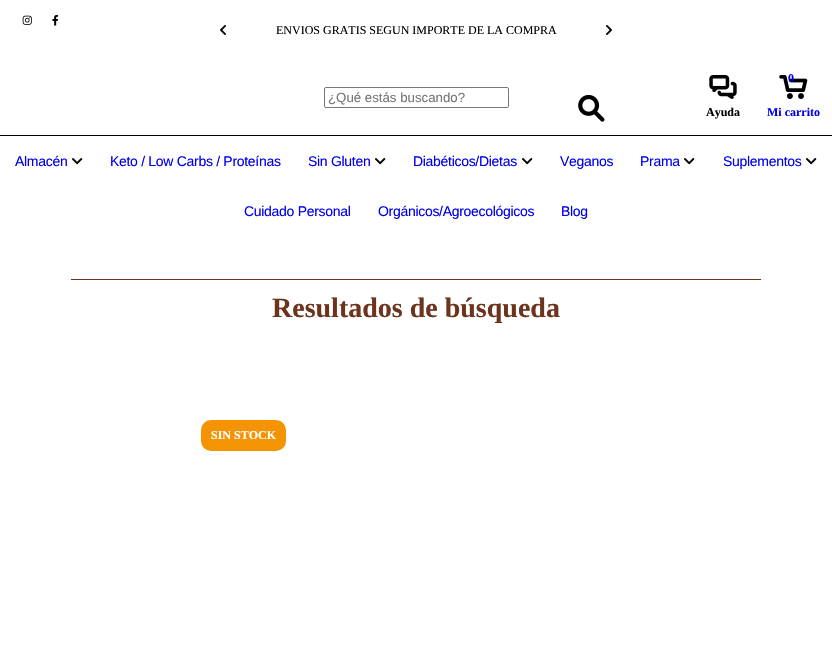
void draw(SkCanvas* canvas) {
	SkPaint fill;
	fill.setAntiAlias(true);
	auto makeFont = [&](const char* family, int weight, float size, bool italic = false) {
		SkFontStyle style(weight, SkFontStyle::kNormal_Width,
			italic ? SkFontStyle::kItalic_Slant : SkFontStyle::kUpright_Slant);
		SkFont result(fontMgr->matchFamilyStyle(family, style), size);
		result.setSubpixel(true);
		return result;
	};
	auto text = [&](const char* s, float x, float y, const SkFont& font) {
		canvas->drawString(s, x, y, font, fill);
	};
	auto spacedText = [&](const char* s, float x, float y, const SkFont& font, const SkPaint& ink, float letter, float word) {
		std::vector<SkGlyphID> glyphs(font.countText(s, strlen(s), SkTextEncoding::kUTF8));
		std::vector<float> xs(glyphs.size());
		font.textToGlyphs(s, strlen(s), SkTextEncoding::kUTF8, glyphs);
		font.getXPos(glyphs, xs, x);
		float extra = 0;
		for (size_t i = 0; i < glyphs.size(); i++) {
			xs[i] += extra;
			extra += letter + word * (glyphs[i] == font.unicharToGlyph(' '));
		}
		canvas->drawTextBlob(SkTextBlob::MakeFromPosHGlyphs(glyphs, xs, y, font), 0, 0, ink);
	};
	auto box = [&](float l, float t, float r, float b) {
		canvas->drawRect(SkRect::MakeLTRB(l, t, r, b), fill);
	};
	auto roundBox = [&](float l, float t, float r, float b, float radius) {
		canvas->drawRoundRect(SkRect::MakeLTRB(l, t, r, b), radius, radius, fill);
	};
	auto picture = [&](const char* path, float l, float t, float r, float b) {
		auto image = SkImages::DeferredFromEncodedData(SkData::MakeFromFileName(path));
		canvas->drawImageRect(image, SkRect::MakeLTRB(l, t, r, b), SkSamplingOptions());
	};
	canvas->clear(0xFFFFFFFF);
	picture("image0.png", 22, 15, 32, 25);
	picture("image1.png", 52, 15, 59, 26);
	picture("image2.png", 220, 25, 226, 35);
	picture("image3.png", 606, 25, 612, 35);
	fill.setStyle(SkPaint::kStroke_Style);
	fill.setStrokeWidth(1);
	fill.setColor(0xFF767676);
	canvas->drawRoundRect(SkRect::MakeLTRB(324.5f, 87.5f, 508.5f, 107.5f), 1.5f, 1.5f, fill);
	picture("image4.png", 578, 95, 605, 122);
	picture("image5.png", 709, 75, 737, 99);
	picture("image6.png", 779, 75, 808, 99);
	fill.setStyle(SkPaint::kFill_Style);
	fill.setColor(0xFF000000);
	box(0, 135, 832, 136);
	picture("image7.png", 72, 158, 83, 165);
	picture("image7.png", 375, 158, 386, 165);
	picture("image7.png", 522, 158, 533, 165);
	picture("image7.png", 684, 158, 695, 165);
	picture("image7.png", 806, 158, 817, 165);
	fill.setColor(0xFF6C341C);
	box(71, 279, 761, 280);
	fill.setColor(0xFFF49403);
	roundBox(201, 420, 286, 451, 10);
	auto font1 = makeFont("Liberation Serif", 400, 12);
	fill.setColor(0xFF000000);
	text("ENVIOS GRATIS SEGUN IMPORTE DE LA COMPRA", 276, 34, font1);
	auto font2 = makeFont("Liberation Sans", 400, 13.25f);
	fill.setColor(0xFF757575);
	text("¿Qué estás buscando?", 328, 102, font2);
	auto font3 = makeFont("Liberation Serif", 700, 12);
	fill.setColor(0xFF000000);
	text("Ayuda", 706, 116, font3);
	fill.setColor(0xFF0000EE);
	text("0", 788, 82, font3);
	text("Mi carrito", 767, 116, font3);
	auto font4 = makeFont("Liberation Sans", 400, 14);
	spacedText("Almacén", 15, 166, font4, fill, -0.3f, 0);
	spacedText("Keto / Low Carbs / Proteínas", 110, 166, font4, fill, -0.3f, 0);
	spacedText("Sin Gluten", 308, 166, font4, fill, -0.3f, 0);
	spacedText("Diabéticos/Dietas", 413, 166, font4, fill, -0.3f, 0);
	spacedText("Veganos", 560, 166, font4, fill, -0.3f, 0);
	spacedText("Prama", 640, 166, font4, fill, -0.3f, 0);
	spacedText("Suplementos", 723, 166, font4, fill, -0.3f, 0);
	spacedText("Cuidado Personal", 244, 216, font4, fill, -0.3f, 0);
	spacedText("Orgánicos/Agroecológicos", 378, 216, font4, fill, -0.3f, 0);
	spacedText("Blog", 561, 216, font4, fill, -0.3f, 0);
	auto font5 = makeFont("Liberation Serif", 700, 28);
	fill.setColor(0xFF6C341C);
	text("Resultados de búsqueda", 272, 317, font5);
	fill.setColor(0xFFFFFFFF);
	text("SIN STOCK", 211, 439, font3);
}
